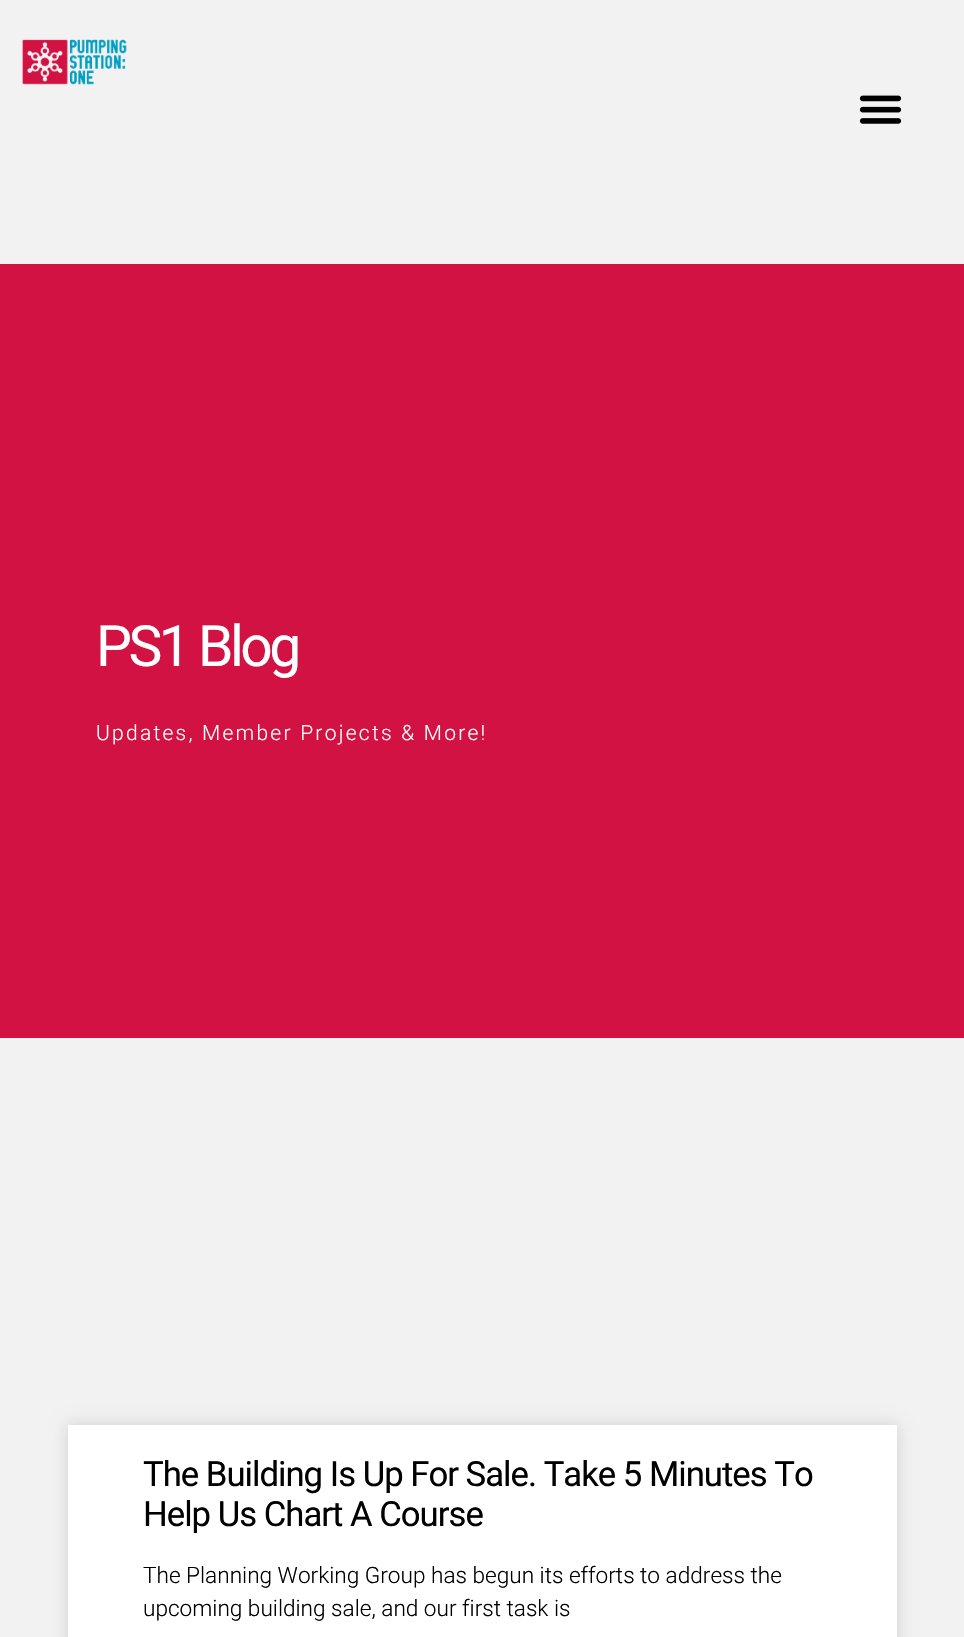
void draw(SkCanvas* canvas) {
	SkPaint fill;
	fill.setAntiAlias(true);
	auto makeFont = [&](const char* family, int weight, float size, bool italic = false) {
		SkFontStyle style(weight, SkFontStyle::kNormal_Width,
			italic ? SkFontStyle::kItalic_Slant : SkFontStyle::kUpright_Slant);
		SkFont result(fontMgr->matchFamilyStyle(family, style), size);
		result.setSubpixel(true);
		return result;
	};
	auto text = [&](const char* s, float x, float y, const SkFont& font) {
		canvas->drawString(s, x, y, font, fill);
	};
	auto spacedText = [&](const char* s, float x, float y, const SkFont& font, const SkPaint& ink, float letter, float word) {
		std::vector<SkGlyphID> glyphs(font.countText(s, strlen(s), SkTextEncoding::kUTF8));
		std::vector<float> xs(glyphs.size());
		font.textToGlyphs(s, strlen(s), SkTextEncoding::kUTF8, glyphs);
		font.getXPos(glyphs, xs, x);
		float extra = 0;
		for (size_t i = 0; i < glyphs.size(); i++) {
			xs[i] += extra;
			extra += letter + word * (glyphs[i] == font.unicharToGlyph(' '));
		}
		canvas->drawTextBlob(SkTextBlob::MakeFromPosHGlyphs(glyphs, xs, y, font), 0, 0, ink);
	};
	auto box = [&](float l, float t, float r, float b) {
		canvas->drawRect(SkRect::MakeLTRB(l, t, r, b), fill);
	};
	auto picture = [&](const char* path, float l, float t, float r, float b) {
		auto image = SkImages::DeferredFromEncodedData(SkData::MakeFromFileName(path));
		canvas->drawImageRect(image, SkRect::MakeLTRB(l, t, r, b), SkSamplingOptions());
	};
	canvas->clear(0xFFF2F2F2);
	picture("image0.png", 22, 39, 127, 85);
	picture("image1.png", 859, 95, 902, 124);
	fill.setColor(0xFFD11242);
	box(0, 264, 964, 1038);
	fill.setColor(0x26000000);
	fill.setMaskFilter(SkMaskFilter::MakeBlur(kNormal_SkBlurStyle, 7.5f));
	canvas->drawRect(SkRect::MakeLTRB(68, 1425, 897, 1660), fill);
	fill.setMaskFilter(nullptr);
	fill.setColor(0xFFFFFFFF);
	box(68, 1425, 897, 1637);
	auto font1 = makeFont("Roboto", 400, 57);
	spacedText("PS1 Blog", 96, 666, font1, fill, -3.5f, 0);
	auto font2 = makeFont("Roboto", 300, 21);
	spacedText("Updates, Member Projects & More!", 96, 740, font2, fill, 2.25f, 0);
	auto font3 = makeFont("Roboto", 400, 34.7f);
	fill.setColor(0xFF000000);
	spacedText("The Building Is Up For Sale. Take 5 Minutes To", 143, 1486, font3, fill, -1, 0);
	spacedText("Help Us Chart A Course", 143, 1526, font3, fill, -1, 0);
	auto font4 = makeFont("Roboto", 300, 22.6f);
	text("The Planning Working Group has begun its efforts to address the", 143, 1583, font4);
	text("upcoming building sale, and our first task is", 143, 1616, font4);
}
